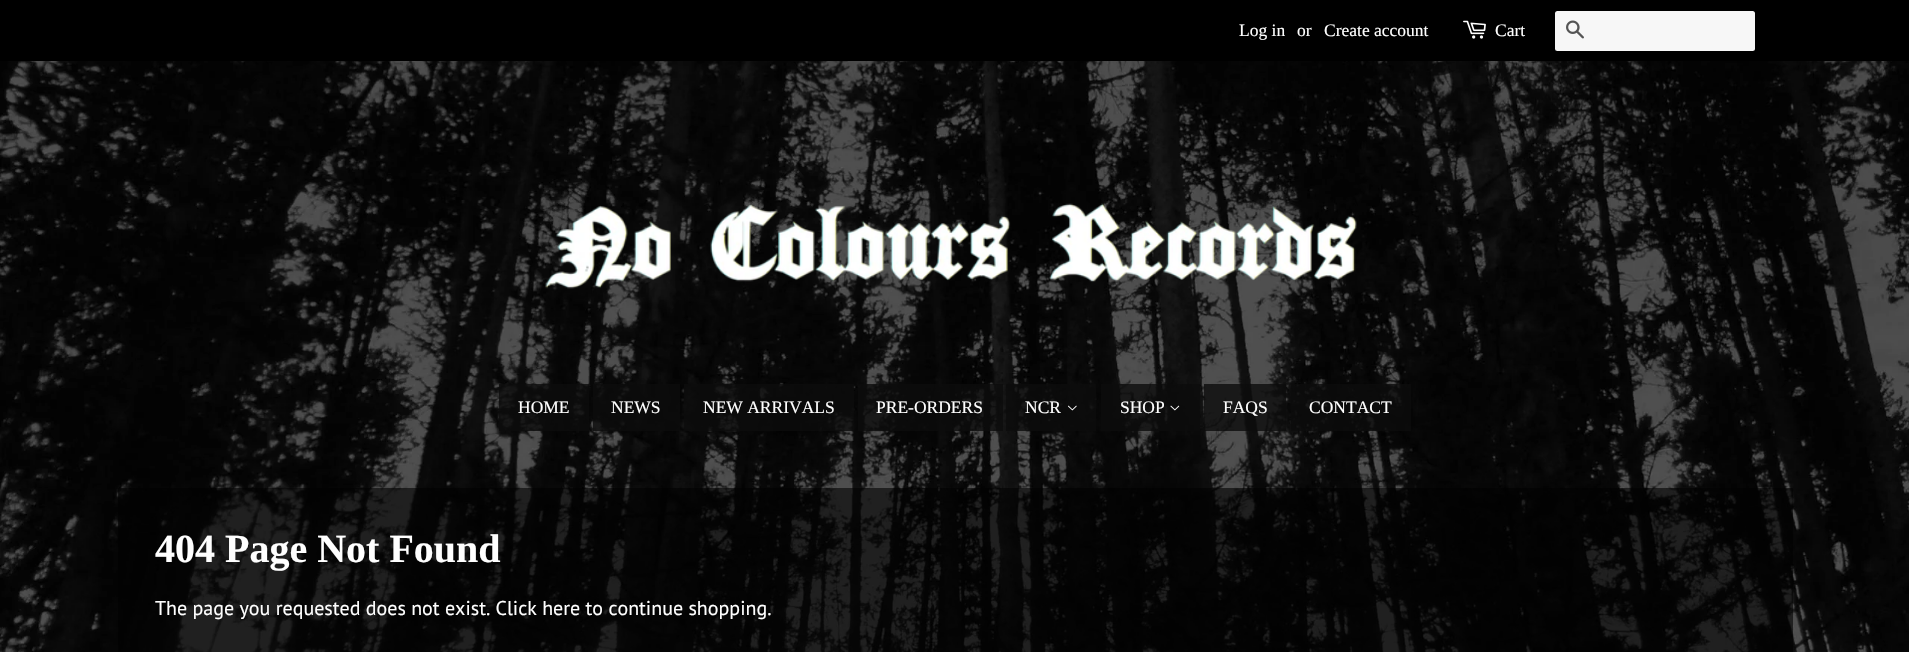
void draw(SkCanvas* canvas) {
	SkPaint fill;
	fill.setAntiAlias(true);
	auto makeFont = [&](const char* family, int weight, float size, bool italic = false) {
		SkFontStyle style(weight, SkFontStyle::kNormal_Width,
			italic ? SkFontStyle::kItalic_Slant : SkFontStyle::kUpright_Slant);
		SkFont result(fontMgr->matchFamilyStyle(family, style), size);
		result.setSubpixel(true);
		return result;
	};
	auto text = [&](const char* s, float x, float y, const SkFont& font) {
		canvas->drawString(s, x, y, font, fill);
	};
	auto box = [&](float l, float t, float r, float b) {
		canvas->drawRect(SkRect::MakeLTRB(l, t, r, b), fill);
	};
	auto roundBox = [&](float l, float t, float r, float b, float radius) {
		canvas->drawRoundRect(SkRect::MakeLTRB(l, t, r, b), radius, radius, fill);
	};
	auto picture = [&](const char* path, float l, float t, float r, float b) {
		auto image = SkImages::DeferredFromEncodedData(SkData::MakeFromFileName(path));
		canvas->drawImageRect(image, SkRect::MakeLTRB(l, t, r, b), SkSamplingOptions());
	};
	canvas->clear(0xFFFFFFFF);
	picture("image0.png", 0, 61, 1909, 652);
	fill.setColor(0xFF000000);
	box(0, 0, 1909, 61);
	picture("image1.png", 1463, 20, 1486, 39);
	fill.setColor(0xFFFFFFFF);
	roundBox(1555, 11, 1755, 51, 2.5f);
	fill.setColor(0x08000000);
	box(1555, 11, 1755, 51);
	picture("image2.png", 1566, 20, 1584, 39);
	picture("image3.png", 545, 203, 1357, 289);
	fill.setColor(0xCC0B0B0B);
	box(499, 384, 589, 431);
	box(593, 384, 680, 431);
	box(684, 384, 854, 431);
	box(858, 384, 1003, 431);
	box(1006, 384, 1096, 431);
	picture("image4.png", 1068, 405, 1077, 411);
	box(1101, 384, 1200, 431);
	picture("image5.png", 1170, 405, 1180, 411);
	box(1204, 384, 1286, 431);
	box(1291, 384, 1411, 431);
	fill.setColor(0x99000000);
	box(118, 488, 1793, 652);
	auto font1 = makeFont("Liberation Serif", 400, 17.5f);
	fill.setColor(0xFFFFFFFF);
	text("Log in", 1239, 36, font1);
	text("or", 1297, 36, font1);
	text("Create account", 1324, 36, font1);
	text("Cart", 1495, 36, font1);
	text("HOME", 518, 413, font1);
	text("NEWS", 611, 413, font1);
	text("NEW ARRIVALS", 703, 413, font1);
	text("PRE-ORDERS", 876, 413, font1);
	text("NCR", 1025, 413, font1);
	text("SHOP", 1120, 413, font1);
	text("FAQS", 1223, 413, font1);
	text("CONTACT", 1309, 413, font1);
	auto font2 = makeFont("Liberation Serif", 700, 40);
	text("404 Page Not Found", 155, 562, font2);
	auto font3 = makeFont("PT Sans", 400, 20);
	text("The page you requested does not exist. Click here to continue shopping.", 155, 615, font3);
}
